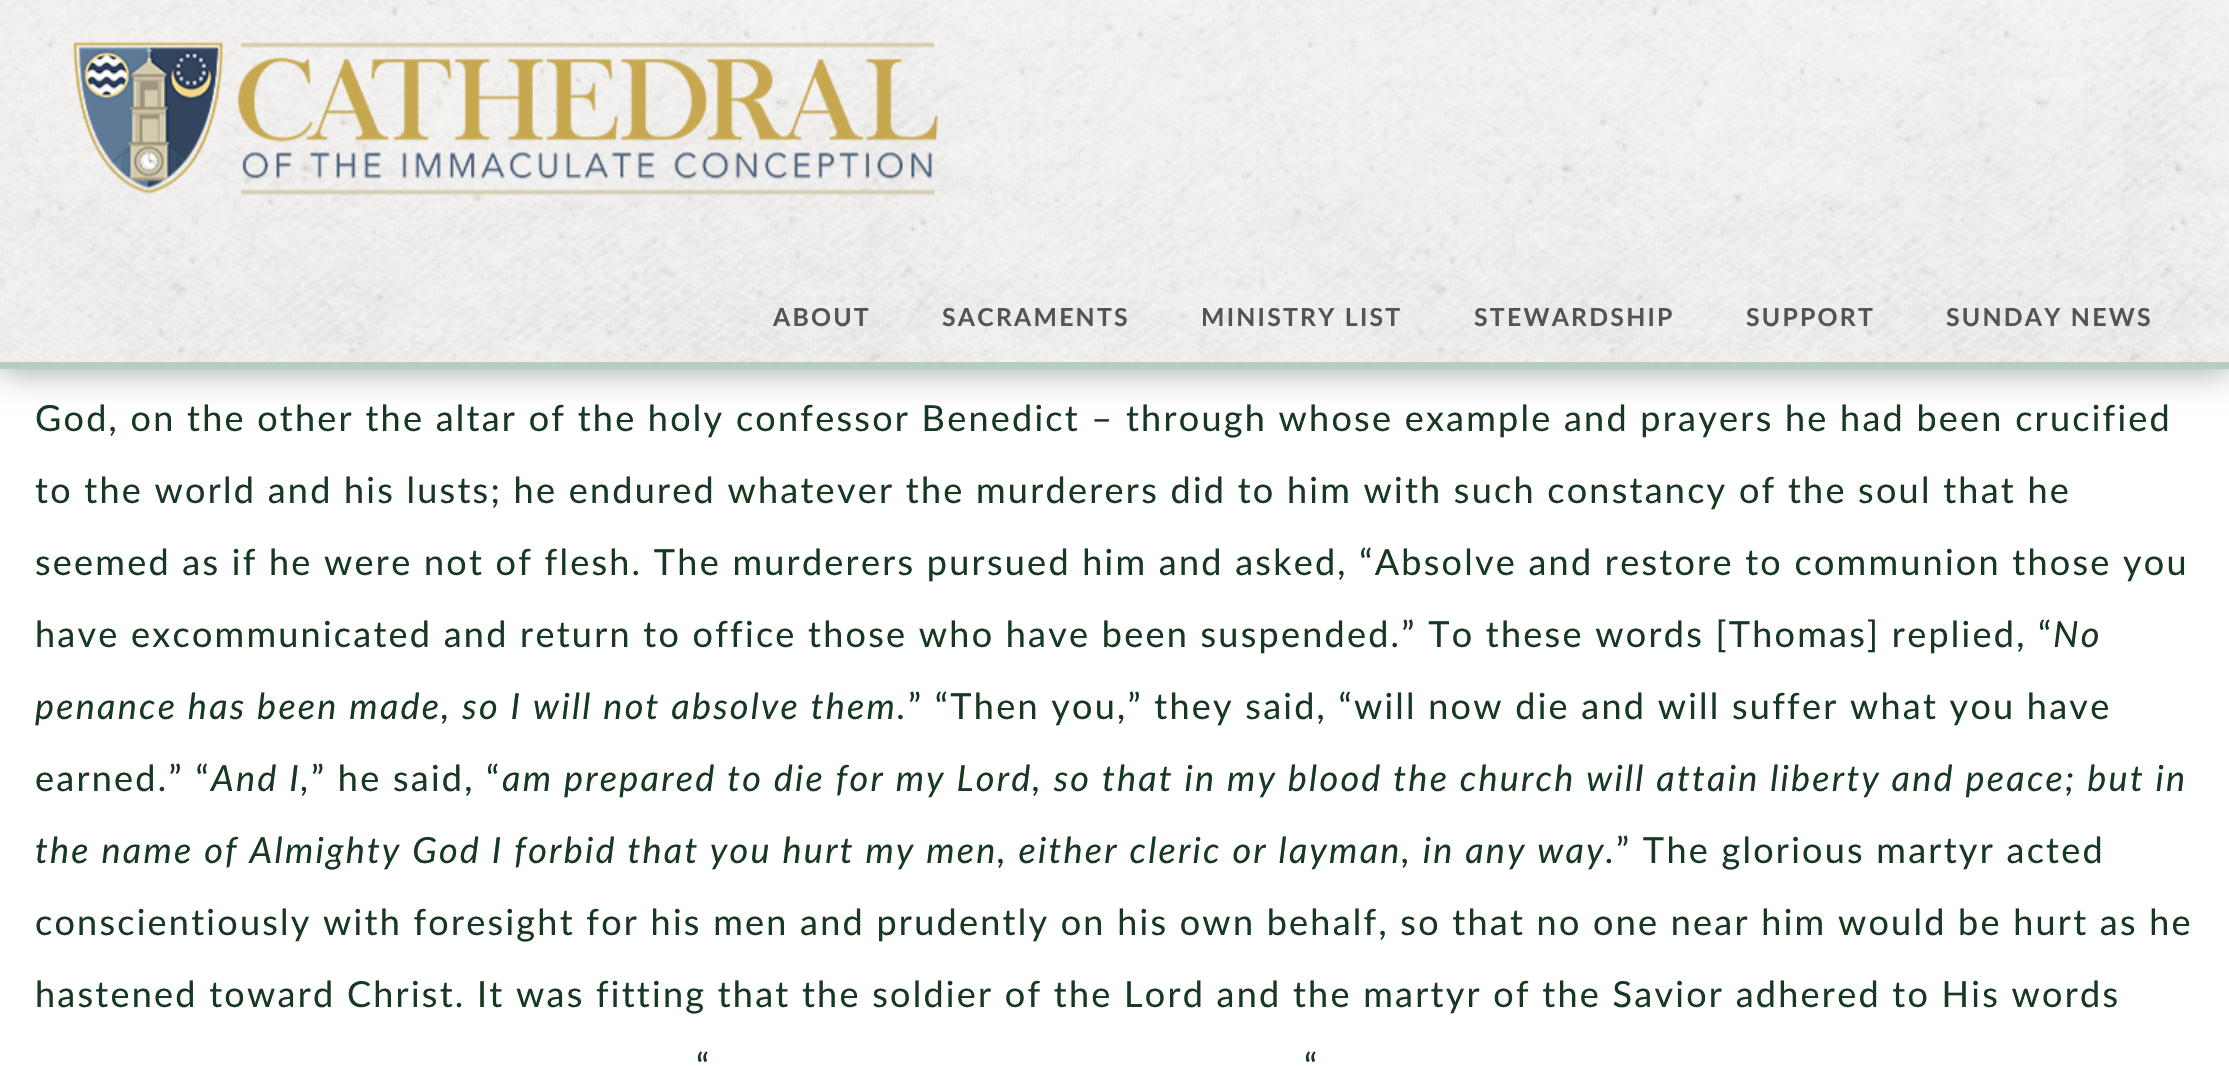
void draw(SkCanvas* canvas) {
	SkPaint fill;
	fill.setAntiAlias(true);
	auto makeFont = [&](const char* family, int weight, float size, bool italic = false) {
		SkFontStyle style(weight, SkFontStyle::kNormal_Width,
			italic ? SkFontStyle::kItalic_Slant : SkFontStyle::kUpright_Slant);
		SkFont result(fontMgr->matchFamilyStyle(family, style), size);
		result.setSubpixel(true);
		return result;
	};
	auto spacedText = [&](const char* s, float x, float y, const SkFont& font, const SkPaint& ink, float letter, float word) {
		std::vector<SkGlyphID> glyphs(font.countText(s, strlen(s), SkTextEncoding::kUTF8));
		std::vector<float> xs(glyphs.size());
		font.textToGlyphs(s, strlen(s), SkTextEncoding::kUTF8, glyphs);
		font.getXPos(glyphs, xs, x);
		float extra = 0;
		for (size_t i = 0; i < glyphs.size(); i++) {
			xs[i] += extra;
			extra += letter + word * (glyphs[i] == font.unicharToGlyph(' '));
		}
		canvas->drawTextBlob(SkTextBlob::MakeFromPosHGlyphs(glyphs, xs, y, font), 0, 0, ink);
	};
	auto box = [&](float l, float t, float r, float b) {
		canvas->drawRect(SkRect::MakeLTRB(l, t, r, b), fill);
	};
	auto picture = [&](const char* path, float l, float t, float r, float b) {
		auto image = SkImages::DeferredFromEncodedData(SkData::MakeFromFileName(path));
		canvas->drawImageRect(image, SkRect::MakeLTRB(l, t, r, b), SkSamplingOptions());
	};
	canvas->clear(0xFFFFFFFF);
	fill.setColor(0xFF999999);
	fill.setMaskFilter(SkMaskFilter::MakeBlur(kNormal_SkBlurStyle, 17));
	canvas->drawRect(SkRect::MakeLTRB(0, 0, 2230, 369), fill);
	fill.setMaskFilter(nullptr);
	picture("image0.png", 0, 0, 2229, 362);
	fill.setColor(0xFFB2CFBF);
	box(0, 362, 2229, 369);
	picture("image1.png", 73, 41, 938, 196);
	auto font1 = makeFont("Lato", 700, 24.75f);
	fill.setColor(0xFF545454);
	spacedText("ABOUT", 773, 326, font1, fill, 2.25f, 0);
	spacedText("SACRAMENTS", 942, 326, font1, fill, 2.25f, 0);
	spacedText("MINISTRY LIST", 1201, 326, font1, fill, 2.25f, 0);
	spacedText("STEWARDSHIP", 1474, 326, font1, fill, 2.25f, 0);
	spacedText("SUPPORT", 1746, 326, font1, fill, 2.25f, 0);
	spacedText("SUNDAY NEWS", 1946, 326, font1, fill, 2.25f, 0);
	auto font2 = makeFont("Lato", 400, 36);
	fill.setColor(0xFF173821);
	spacedText("God, on the other the altar of the holy confessor Benedict – through whose example and prayers he had been crucified", 35, 431, font2, fill, 2.25f, 0);
	spacedText("to the world and his lusts; he endured whatever the murderers did to him with such constancy of the soul that he", 35, 503, font2, fill, 2.25f, 0);
	spacedText("seemed as if he were not of flesh. The murderers pursued him and asked, “Absolve and restore to communion those you", 35, 575, font2, fill, 2.25f, 0);
	spacedText("have excommunicated and return to office those who have been suspended.” To these words [Thomas] replied, “", 35, 647, font2, fill, 2.25f, 0);
	auto font3 = makeFont("Lato", 400, 36, true);
	spacedText("No", 2053, 647, font3, fill, 2.25f, 0);
	spacedText("penance has been made, so I will not absolve them.", 35, 719, font3, fill, 2.25f, 0);
	spacedText("” “Then you,” they said, “will now die and will suffer what you have", 908, 719, font2, fill, 2.25f, 0);
	spacedText("earned.” “", 35, 791, font2, fill, 2.25f, 0);
	spacedText("And I,", 211, 791, font3, fill, 2.25f, 0);
	spacedText("” he said, “", 311, 791, font2, fill, 2.25f, 0);
	spacedText("am prepared to die for my Lord, so that in my blood the church will attain liberty and peace; but in", 502, 791, font3, fill, 2.25f, 0);
	spacedText("the name of Almighty God I forbid that you hurt my men, either cleric or layman, in any way.", 35, 863, font3, fill, 2.25f, 0);
	spacedText("” The glorious martyr acted", 1616, 863, font2, fill, 2.25f, 0);
	spacedText("conscientiously with foresight for his men and prudently on his own behalf, so that no one near him would be hurt as he", 35, 935, font2, fill, 2.25f, 0);
	spacedText("hastened toward Christ. It was fitting that the soldier of the Lord and the martyr of the Savior adhered to His words", 35, 1007, font2, fill, 2.25f, 0);
	spacedText("“", 696, 1079, font2, fill, 2.25f, 0);
	spacedText("“", 1304, 1079, font2, fill, 2.25f, 0);
}
